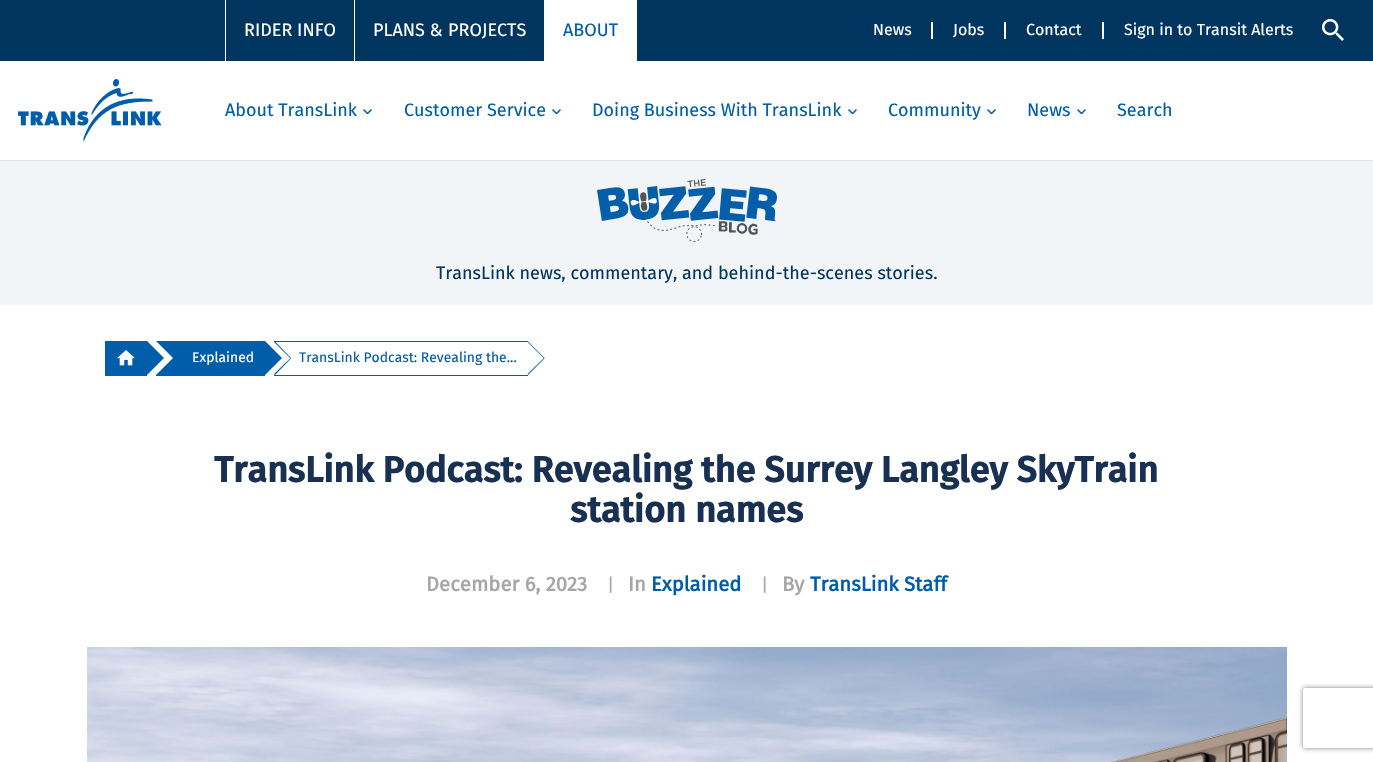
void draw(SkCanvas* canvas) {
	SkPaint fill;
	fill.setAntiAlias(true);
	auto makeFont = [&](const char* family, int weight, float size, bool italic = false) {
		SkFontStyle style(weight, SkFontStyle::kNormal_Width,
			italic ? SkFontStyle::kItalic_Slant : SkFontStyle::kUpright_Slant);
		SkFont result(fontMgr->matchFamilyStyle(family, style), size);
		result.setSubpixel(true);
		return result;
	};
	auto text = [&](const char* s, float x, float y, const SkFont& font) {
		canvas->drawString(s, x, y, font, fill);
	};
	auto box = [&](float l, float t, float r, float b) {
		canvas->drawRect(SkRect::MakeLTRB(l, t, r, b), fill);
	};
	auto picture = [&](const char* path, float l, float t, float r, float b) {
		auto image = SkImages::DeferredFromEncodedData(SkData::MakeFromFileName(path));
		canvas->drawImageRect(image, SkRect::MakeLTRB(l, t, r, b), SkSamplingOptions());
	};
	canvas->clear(0xFFFFFFFF);
	fill.setColor(0xFFDBE5EB);
	box(0, 160, 1373, 161);
	fill.setColor(0xFF00355F);
	box(0, 0, 1373, 61);
	fill.setColor(0xFFFFFFFF);
	box(225, 0, 226, 61);
	box(354, 0, 355, 61);
	box(544, 0, 637, 61);
	box(931, 22, 933, 39);
	box(1004, 22, 1006, 39);
	box(1102, 22, 1104, 39);
	picture("image0.png", 1322, 19, 1344, 41);
	picture("image1.png", 18, 79, 162, 142);
	picture("image2.png", 363, 109, 372, 114);
	picture("image2.png", 552, 109, 561, 114);
	picture("image2.png", 848, 109, 857, 114);
	picture("image2.png", 987, 109, 996, 114);
	picture("image2.png", 1077, 109, 1086, 114);
	fill.setColor(0xFFF2F5F7);
	box(0, 161, 1373, 305);
	picture("image3.png", 597, 179, 777, 242);
	fill.setColor(0xFF005DAA);
	box(105, 341, 147, 376);
	picture("image4.png", 117, 350, 135, 366);
	box(156, 341, 265, 376);
	fill.setColor(0xFFFFFFFF);
	canvas->drawPath(SkPathBuilder().moveTo(156, 375).lineTo(156, 341).lineTo(173, 358).close().detach(), fill);
	fill.setColor(0xFF005DAA);
	canvas->drawPath(SkPathBuilder().moveTo(147, 375).lineTo(147, 341).lineTo(164, 358).close().detach(), fill);
	box(274, 341, 528, 342);
	canvas->drawPath(SkPathBuilder().moveTo(275, 341.5f).lineTo(291, 358).lineTo(290.5f, 358.5f).lineTo(274, 342).close().detach(), fill);
	canvas->drawPath(SkPathBuilder().moveTo(290.5f, 358).lineTo(291, 358.5f).lineTo(275, 375).lineTo(274, 374).close().detach(), fill);
	canvas->drawPath(SkPathBuilder().moveTo(265, 375).lineTo(265, 341).lineTo(282, 358).close().detach(), fill);
	box(274, 375, 528, 376);
	canvas->drawPath(SkPathBuilder().moveTo(528, 341.5f).lineTo(544.5f, 358).lineTo(544, 358.5f).lineTo(527.5f, 342).close().detach(), fill);
	canvas->drawPath(SkPathBuilder().moveTo(544, 358).lineTo(544.5f, 358.5f).lineTo(528, 375).lineTo(527.5f, 374).close().detach(), fill);
	picture("image5.png", 87, 647, 1287, 762);
	canvas->save();
	canvas->clipPath(SkPathBuilder(SkPathFillType::kEvenOdd).moveTo(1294, 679).lineTo(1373, 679).lineTo(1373, 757).lineTo(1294, 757).close().moveTo(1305, 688).lineTo(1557, 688).cubicTo(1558, 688, 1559, 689, 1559, 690).lineTo(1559, 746).cubicTo(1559, 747, 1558, 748, 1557, 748).lineTo(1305, 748).cubicTo(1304, 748, 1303, 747, 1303, 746).lineTo(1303, 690).cubicTo(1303, 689, 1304, 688, 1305, 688).close().detach(), true);
	fill.setColor(0xFF808080);
	fill.setMaskFilter(SkMaskFilter::MakeBlur(kNormal_SkBlurStyle, 2.5f));
	canvas->drawRoundRect(SkRect::MakeLTRB(1303, 688, 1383, 748), 2, 2, fill);
	fill.setMaskFilter(nullptr);
	canvas->restore();
	auto font1 = makeFont("Fira Sans", 400, 18);
	fill.setColor(0xFFFFFFFF);
	text("RIDER INFO", 244, 36, font1);
	text("PLANS & PROJECTS", 373, 36, font1);
	fill.setColor(0xFF005DAA);
	text("ABOUT", 563, 36, font1);
	auto font2 = makeFont("Fira Sans", 400, 16);
	fill.setColor(0xFFFFFFFF);
	text("News", 873, 35, font2);
	text("Jobs", 953, 35, font2);
	text("Contact", 1026, 35, font2);
	text("Sign in to Transit Alerts", 1124, 35, font2);
	fill.setColor(0xFF005DAA);
	text("About TransLink", 225, 116, font1);
	text("Customer Service", 404, 116, font1);
	text("Doing Business With TransLink", 592, 116, font1);
	text("Community", 888, 116, font1);
	text("News", 1027, 116, font1);
	text("Search", 1117, 116, font1);
	fill.setColor(0xFF00355F);
	text("TransLink news, commentary, and behind-the-scenes stories.", 436, 279, font1);
	auto font3 = makeFont("Fira Sans", 400, 13.9f);
	fill.setColor(0xFFFFFFFF);
	text("Explained", 192, 362, font3);
	fill.setColor(0xFF005DAA);
	text("TransLink Podcast: Revealing the...", 299, 362, font3);
	auto font4 = makeFont("Fira Sans", 700, 36);
	fill.setColor(0xFF183152);
	text("TransLink Podcast: Revealing the Surrey Langley SkyTrain", 214, 482, font4);
	text("station names", 570, 522, font4);
	auto font5 = makeFont("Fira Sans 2", 700, 20.25f);
	fill.setColor(0xFFA7A7A7);
	text("December 6, 2023", 426, 591, font5);
	text("|", 607, 591, font1);
	text("In", 628, 591, font5);
	fill.setColor(0xFF005DAA);
	text("Explained", 651, 591, font5);
	fill.setColor(0xFFA7A7A7);
	text("|", 761, 591, font1);
	text("By", 782, 591, font5);
	fill.setColor(0xFF005DAA);
	text("TransLink Staff", 810, 591, font5);
}
